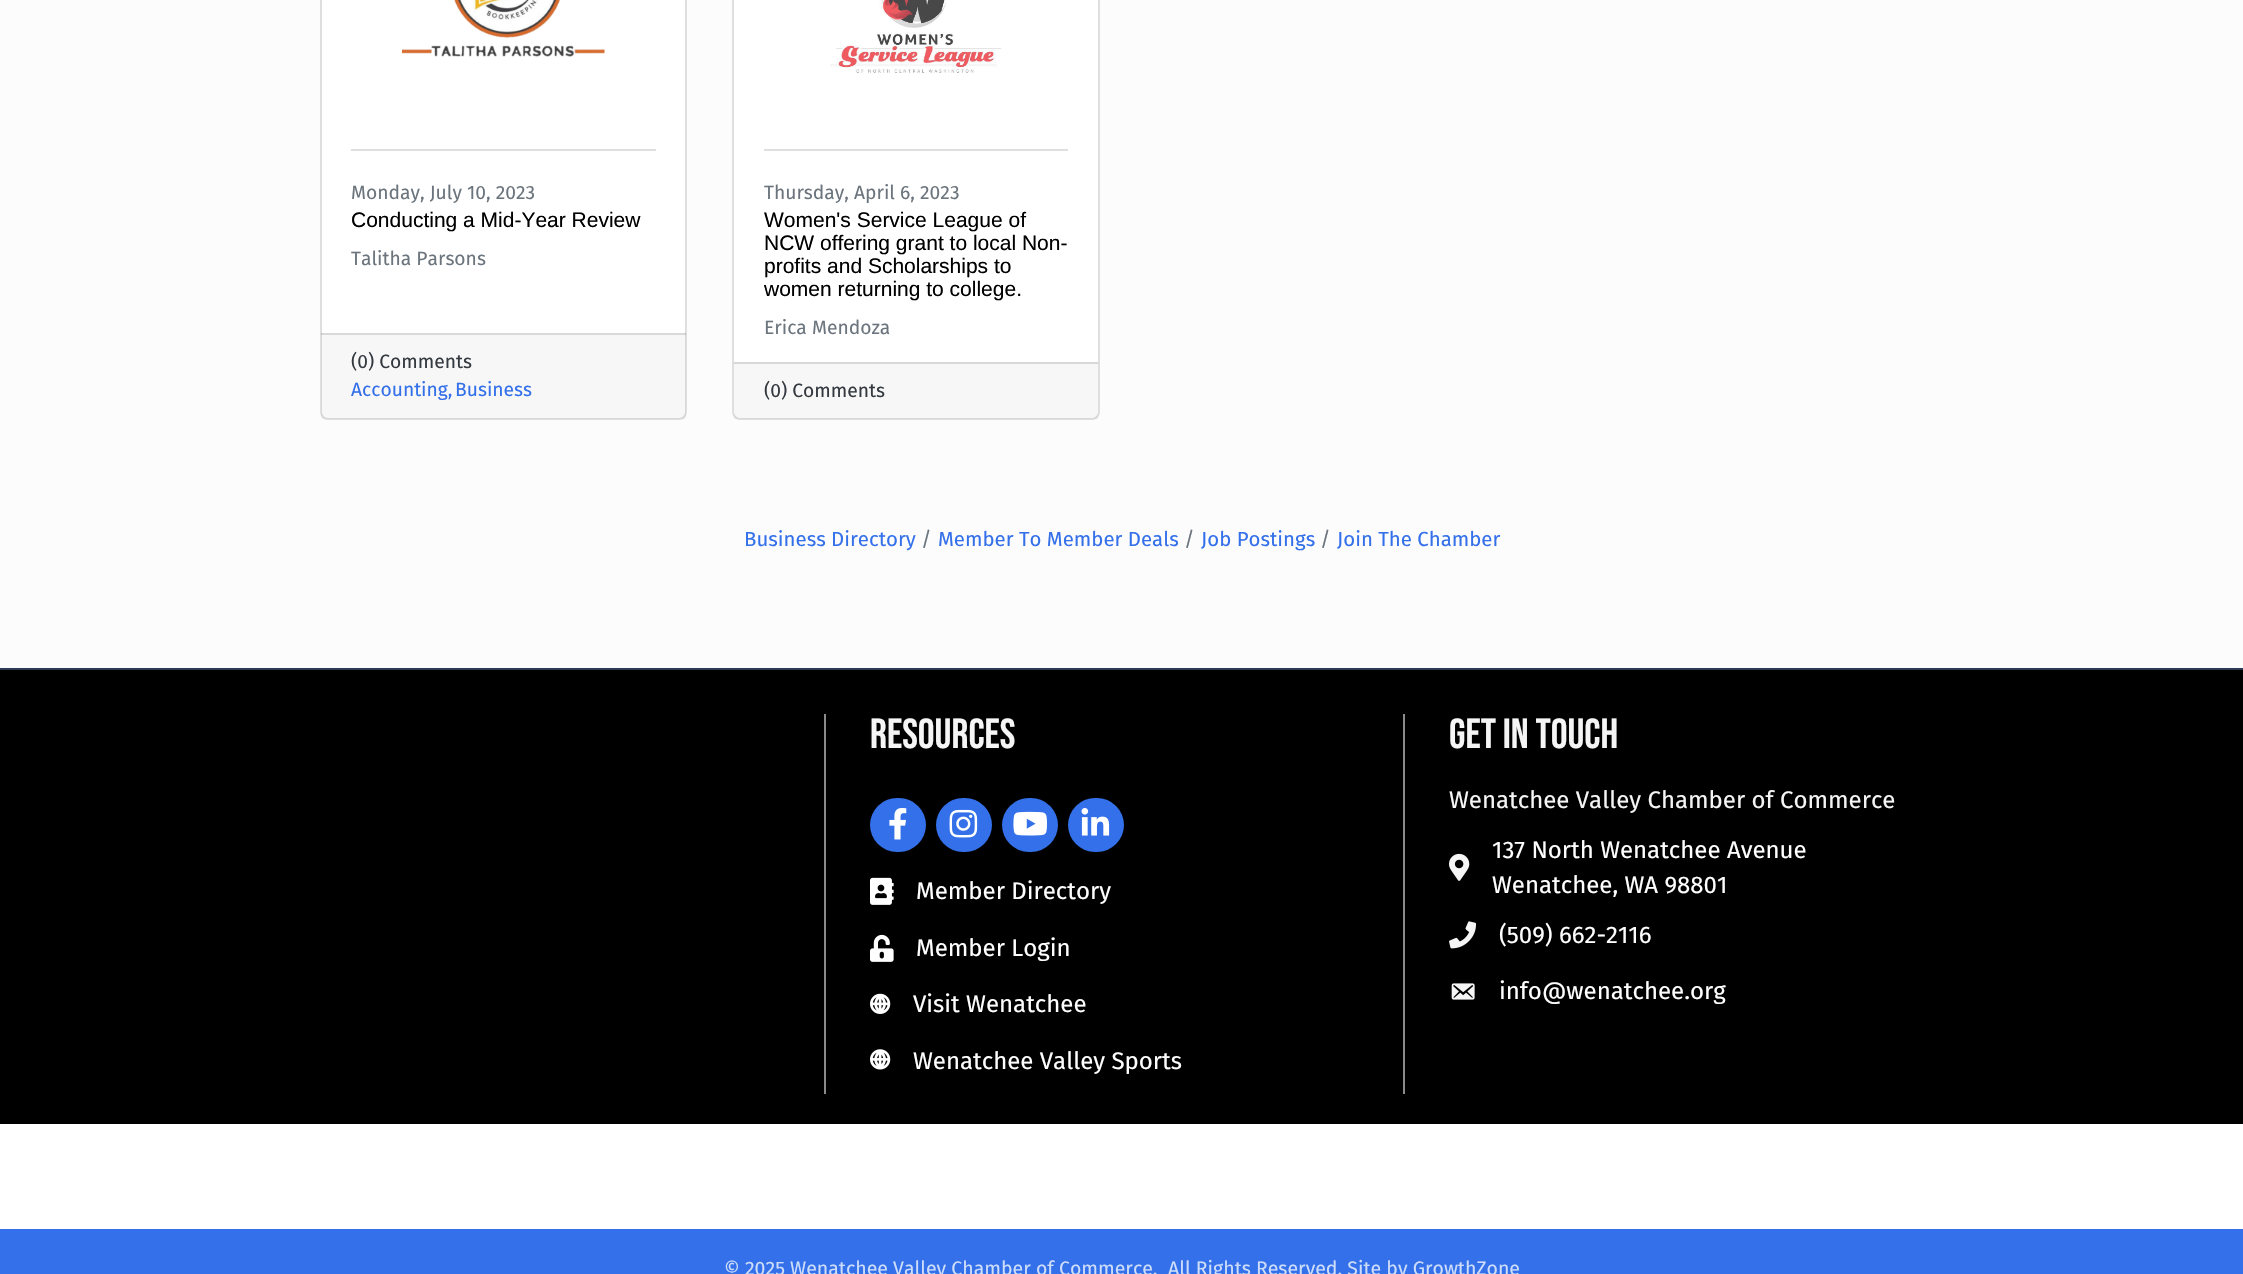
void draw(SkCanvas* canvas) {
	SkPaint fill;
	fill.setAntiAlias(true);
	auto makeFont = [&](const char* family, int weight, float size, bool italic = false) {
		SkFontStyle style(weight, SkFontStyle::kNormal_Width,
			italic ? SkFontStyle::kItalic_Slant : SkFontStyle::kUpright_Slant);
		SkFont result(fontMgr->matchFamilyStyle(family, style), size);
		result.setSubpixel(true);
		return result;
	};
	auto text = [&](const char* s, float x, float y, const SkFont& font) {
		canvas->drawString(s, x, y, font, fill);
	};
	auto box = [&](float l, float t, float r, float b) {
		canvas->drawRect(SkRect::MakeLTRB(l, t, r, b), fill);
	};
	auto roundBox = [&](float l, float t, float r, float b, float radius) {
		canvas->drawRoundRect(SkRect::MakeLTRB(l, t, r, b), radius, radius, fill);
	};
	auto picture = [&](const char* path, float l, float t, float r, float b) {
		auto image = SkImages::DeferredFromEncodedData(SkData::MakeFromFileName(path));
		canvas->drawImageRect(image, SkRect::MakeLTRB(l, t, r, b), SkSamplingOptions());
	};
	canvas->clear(0xFFFFFFFF);
	fill.setColor(0xFFFCFCFC);
	box(0, 0, 2243, 668);
	fill.setColor(0xFFFFFFFF);
	canvas->drawRoundRect(SkRect::MakeLTRB(321, -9, 686, 419), 7, 7, fill);
	fill.setStyle(SkPaint::kStroke_Style);
	fill.setStrokeWidth(2);
	fill.setColor(0xFFDFDFDF);
	canvas->drawRoundRect(SkRect::MakeLTRB(321, -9, 686, 419), 7, 7, fill);
	picture("image0.png", 402, 0, 605, 57);
	fill.setStyle(SkPaint::kFill_Style);
	box(351, 149, 656, 151);
	fill.setColor(0x08000000);
	box(321, 333, 686, 419);
	fill.setColor(0x1F000000);
	box(321, 333, 686, 335);
	fill.setColor(0xFFFFFFFF);
	canvas->drawRoundRect(SkRect::MakeLTRB(733, -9, 1099, 419), 7, 7, fill);
	fill.setStyle(SkPaint::kStroke_Style);
	fill.setColor(0xFFDFDFDF);
	canvas->drawRoundRect(SkRect::MakeLTRB(733, -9, 1099, 419), 7, 7, fill);
	picture("image1.png", 830, 0, 1002, 73);
	fill.setStyle(SkPaint::kFill_Style);
	box(764, 149, 1068, 151);
	fill.setColor(0x08000000);
	box(734, 364, 1098, 419);
	fill.setColor(0xFFD8D8D8);
	box(734, 362, 1098, 364);
	fill.setColor(0xFF000000);
	box(0, 670, 2243, 1124);
	fill.setColor(0xFF2C3A56);
	box(0, 668, 2243, 670);
	fill.setColor(0xFF8A8A8A);
	box(824, 714, 826, 1094);
	fill.setColor(0xFF3370E9);
	roundBox(870, 798, 926, 852, 27);
	picture("image2.png", 889, 807, 907, 840);
	roundBox(936, 798, 992, 852, 27);
	picture("image3.png", 949, 809, 978, 838);
	roundBox(1002, 798, 1058, 852, 27);
	picture("image4.png", 1013, 811, 1047, 836);
	roundBox(1068, 798, 1124, 852, 27);
	picture("image5.png", 1081, 808, 1110, 836);
	picture("image6.png", 870, 877, 894, 905);
	picture("image7.png", 870, 934, 894, 962);
	picture("image8.png", 870, 993, 891, 1014);
	picture("image9.png", 870, 1049, 891, 1070);
	fill.setColor(0xFF8A8A8A);
	box(1403, 714, 1405, 1094);
	picture("image10.png", 1449, 853, 1470, 881);
	picture("image11.png", 1449, 921, 1477, 949);
	picture("image12.png", 1451, 983, 1475, 1000);
	fill.setColor(0xFF3370E9);
	box(0, 1229, 2243, 1274);
	auto font1 = makeFont("Fira Sans", 400, 19.25f);
	fill.setColor(0xFF6C757D);
	text("Monday, July 10, 2023", 351, 199, font1);
	auto font2 = makeFont("Liberation Sans", 400, 21);
	fill.setColor(0xFF000000);
	text("Conducting a Mid-Year Review", 351, 227, font2);
	fill.setColor(0xFF6C757D);
	text("Talitha Parsons", 351, 265, font1);
	fill.setColor(0xFF343A40);
	text("(0) Comments", 351, 368, font1);
	fill.setColor(0xFF3370E9);
	text("Accounting,", 351, 396, font1);
	text("Business", 455, 396, font1);
	fill.setColor(0xFF6C757D);
	text("Thursday, April 6, 2023", 764, 199, font1);
	fill.setColor(0xFF000000);
	text("Women's Service League of", 764, 227, font2);
	text("NCW offering grant to local Non-", 764, 250, font2);
	text("profits and Scholarships to", 764, 273, font2);
	text("women returning to college.", 764, 296, font2);
	fill.setColor(0xFF6C757D);
	text("Erica Mendoza", 764, 334, font1);
	fill.setColor(0xFF343A40);
	text("(0) Comments", 764, 397, font1);
	auto font3 = makeFont("Fira Sans", 400, 20.4f);
	fill.setColor(0xFF3370E9);
	text("Business Directory", 744, 546, font3);
	fill.setColor(0xFF6C757D);
	text("/", 921, 546, font3);
	fill.setColor(0xFF3370E9);
	text("Member To Member Deals", 938, 546, font3);
	fill.setColor(0xFF6C757D);
	text("/", 1184, 546, font3);
	fill.setColor(0xFF3370E9);
	text("Job Postings", 1201, 546, font3);
	fill.setColor(0xFF6C757D);
	text("/", 1320, 546, font3);
	fill.setColor(0xFF3370E9);
	text("Join The Chamber", 1337, 546, font3);
	auto font4 = makeFont("Bebas Neue", 400, 42);
	fill.setColor(0xFFF5F5F5);
	text("Resources", 870, 748, font4);
	auto font5 = makeFont("Fira Sans", 400, 24);
	fill.setColor(0xFFFFFFFF);
	text("Member Directory", 916, 899, font5);
	text("Member Login", 916, 956, font5);
	text("Visit Wenatchee", 913, 1012, font5);
	text("Wenatchee Valley Sports", 913, 1069, font5);
	fill.setColor(0xFFF5F5F5);
	text("Get in touch", 1449, 748, font4);
	text("Wenatchee Valley Chamber of Commerce", 1449, 808, font5);
	fill.setColor(0xFFFFFFFF);
	text("137 North Wenatchee Avenue", 1492, 858, font5);
	text("Wenatchee, WA 98801", 1492, 893, font5);
	text("(509) 662-2116", 1499, 943, font5);
	text("info@wenatchee.org", 1499, 999, font5);
	auto font6 = makeFont("Fira Sans", 400, 19.5f);
	fill.setColor(0xFFCEDDFA);
	text("© 2025 Wenatchee Valley Chamber of Commerce.", 724, 1275, font6);
	text("All Rights Reserved. Site by GrowthZone", 1168, 1275, font6);
}
